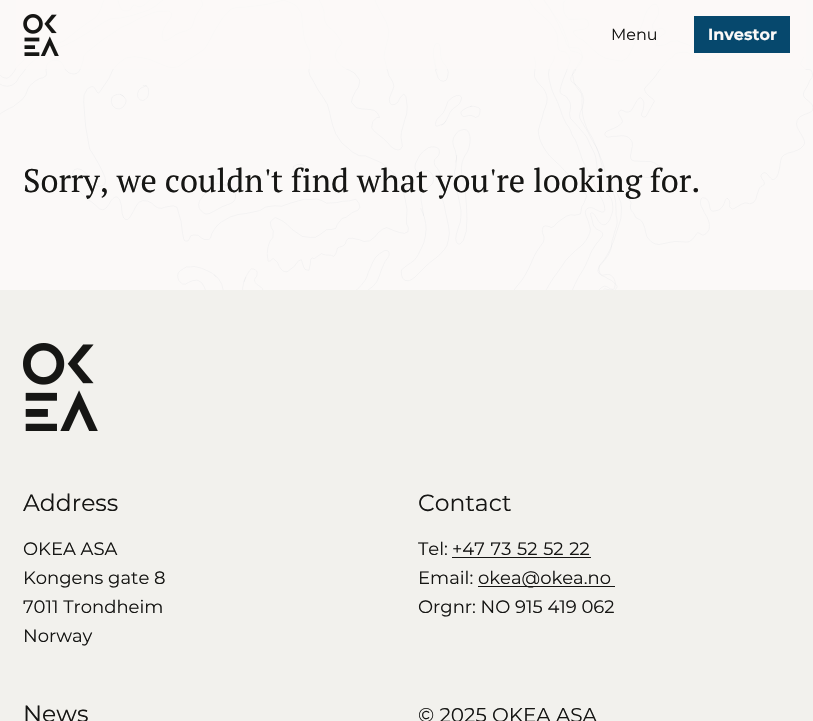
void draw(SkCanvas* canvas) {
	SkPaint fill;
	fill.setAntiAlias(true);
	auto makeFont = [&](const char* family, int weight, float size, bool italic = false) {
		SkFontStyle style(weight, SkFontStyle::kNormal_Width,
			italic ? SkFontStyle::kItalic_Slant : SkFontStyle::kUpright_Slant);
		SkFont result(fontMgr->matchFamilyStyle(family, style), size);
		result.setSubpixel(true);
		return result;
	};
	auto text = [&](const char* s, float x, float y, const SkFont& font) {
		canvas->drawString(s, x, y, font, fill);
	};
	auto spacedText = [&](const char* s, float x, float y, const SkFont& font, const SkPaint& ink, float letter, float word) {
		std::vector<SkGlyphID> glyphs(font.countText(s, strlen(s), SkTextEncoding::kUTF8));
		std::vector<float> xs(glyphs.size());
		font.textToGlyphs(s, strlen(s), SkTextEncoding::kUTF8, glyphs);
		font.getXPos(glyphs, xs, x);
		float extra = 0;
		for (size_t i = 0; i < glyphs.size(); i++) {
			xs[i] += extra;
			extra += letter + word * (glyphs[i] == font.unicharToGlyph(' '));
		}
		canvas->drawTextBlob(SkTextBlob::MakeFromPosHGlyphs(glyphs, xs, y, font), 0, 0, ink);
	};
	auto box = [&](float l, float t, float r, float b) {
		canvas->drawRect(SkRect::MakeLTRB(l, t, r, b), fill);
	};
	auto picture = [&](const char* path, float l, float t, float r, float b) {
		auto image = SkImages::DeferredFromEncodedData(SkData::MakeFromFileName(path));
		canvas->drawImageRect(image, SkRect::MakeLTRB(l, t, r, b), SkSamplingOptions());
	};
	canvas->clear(0xFFFBF9F8);
	picture("image0.png", 0, 0, 813, 290);
	fill.setColor(0xCCFBF9F8);
	box(16, 0, 806, 69);
	picture("image1.png", 23, 14, 59, 56);
	fill.setColor(0xFF06486D);
	box(694, 16, 790, 53);
	fill.setColor(0xFFF2F1ED);
	box(0, 290, 813, 721);
	picture("image2.png", 23, 343, 98, 431);
	fill.setColor(0xFF161614);
	box(452, 557, 591, 558);
	box(478, 586, 615, 587);
	auto font1 = makeFont("Montserrat", 400, 16);
	text("Menu", 611, 40, font1);
	auto font2 = makeFont("Montserrat", 700, 16);
	fill.setColor(0xFFFBF9F8);
	text("Investor", 708, 40, font2);
	auto font3 = makeFont("PT Serif", 400, 32.5f);
	fill.setColor(0xFF161614);
	text("Sorry, we couldn't find what you're looking for.", 23, 192, font3);
	auto font4 = makeFont("Montserrat", 400, 23.5f);
	text("Address", 23, 511, font4);
	auto font5 = makeFont("Montserrat", 400, 18);
	text("OKEA ASA", 23, 555, font5);
	text("Kongens gate 8", 23, 584, font5);
	text("7011 Trondheim", 23, 613, font5);
	text("Norway", 23, 642, font5);
	text("Contact", 418, 511, font4);
	text("Tel:", 418, 555, font5);
	spacedText("+47 73 52 52 22", 452, 555, font5, fill, 0, 1);
	text("Email:", 418, 584, font5);
	text("okea@okea.no", 478, 584, font5);
	text("Orgnr: NO 915 419 062", 418, 613, font5);
	text("News", 23, 722, font4);
	auto font6 = makeFont("Montserrat", 400, 20);
	text("© 2025 OKEA ASA", 418, 722, font6);
}
